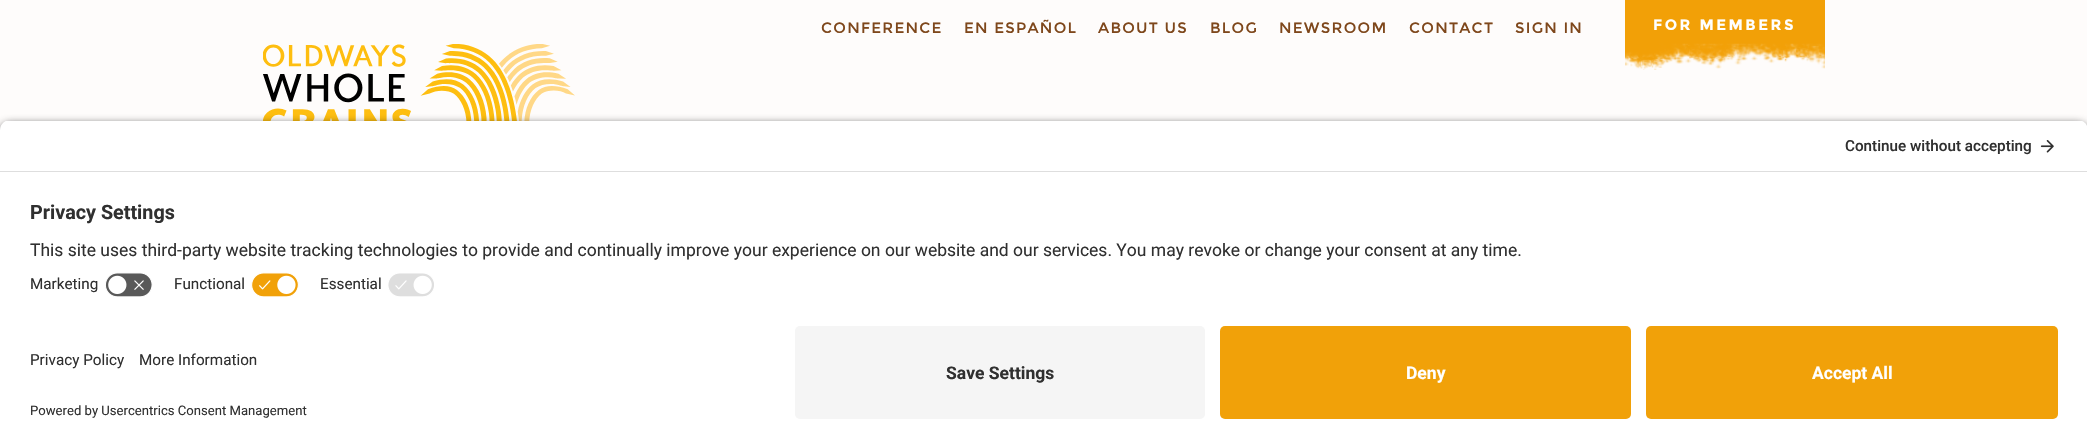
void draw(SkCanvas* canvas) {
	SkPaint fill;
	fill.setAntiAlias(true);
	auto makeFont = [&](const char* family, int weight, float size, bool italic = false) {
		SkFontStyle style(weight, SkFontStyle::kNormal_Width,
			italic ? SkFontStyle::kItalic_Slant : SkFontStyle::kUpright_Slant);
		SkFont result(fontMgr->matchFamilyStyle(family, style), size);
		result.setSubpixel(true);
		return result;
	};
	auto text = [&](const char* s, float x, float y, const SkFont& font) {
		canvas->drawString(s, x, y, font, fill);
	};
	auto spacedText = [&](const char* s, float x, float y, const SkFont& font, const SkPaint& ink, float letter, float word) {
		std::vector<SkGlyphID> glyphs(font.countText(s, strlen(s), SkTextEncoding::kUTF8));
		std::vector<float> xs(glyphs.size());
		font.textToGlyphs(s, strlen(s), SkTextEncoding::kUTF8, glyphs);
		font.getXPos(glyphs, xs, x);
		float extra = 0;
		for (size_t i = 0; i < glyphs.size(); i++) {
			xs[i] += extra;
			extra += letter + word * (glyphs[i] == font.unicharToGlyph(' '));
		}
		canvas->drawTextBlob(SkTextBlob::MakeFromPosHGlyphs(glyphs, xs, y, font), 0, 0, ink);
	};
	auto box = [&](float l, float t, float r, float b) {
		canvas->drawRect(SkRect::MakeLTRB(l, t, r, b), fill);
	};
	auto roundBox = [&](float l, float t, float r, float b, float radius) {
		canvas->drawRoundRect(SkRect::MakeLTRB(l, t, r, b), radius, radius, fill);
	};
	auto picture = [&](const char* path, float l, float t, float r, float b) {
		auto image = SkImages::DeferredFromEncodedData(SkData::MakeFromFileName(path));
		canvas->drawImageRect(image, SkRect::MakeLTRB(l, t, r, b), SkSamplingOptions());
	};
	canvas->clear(0xFFFEFCFB);
	picture("image0.png", 1625, 0, 1825, 70);
	picture("image1.png", 263, 44, 575, 121);
	fill.setColor(0xCC000000);
	fill.setMaskFilter(SkMaskFilter::MakeBlur(kNormal_SkBlurStyle, 4.5f));
	canvas->drawRoundRect(SkRect::MakeLTRB(0, 124, 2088, 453), 10, 10, fill);
	fill.setMaskFilter(nullptr);
	canvas->save();
	canvas->clipPath(SkPathBuilder().moveTo(10, 120).lineTo(2078, 120).cubicTo(2083.5f, 120, 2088, 124.5f, 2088, 130).lineTo(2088, 316).lineTo(0, 316).lineTo(0, 130).cubicTo(0, 124.5f, 4.5f, 120, 10, 120).close().detach(), true);
	fill.setColor(0xFFFFFFFF);
	box(0, 121, 2087, 173);
	canvas->restore();
	fill.setColor(0xFFDEDEDE);
	box(0, 171, 2087, 172);
	picture("image2.png", 2040, 140, 2054, 153);
	fill.setColor(0xFFFFFFFF);
	box(0, 173, 2087, 448);
	picture("image3.png", 105, 272, 153, 297);
	picture("image4.png", 251, 272, 299, 297);
	picture("image5.png", 388, 273, 434, 297);
	fill.setColor(0xFFF5F5F5);
	roundBox(795, 326, 1205, 419, 5);
	fill.setColor(0xFFF1A109);
	roundBox(1220, 326, 1631, 419, 5);
	roundBox(1646, 326, 2058, 419, 5);
	auto font1 = makeFont("Montserrat", 400, 15);
	fill.setColor(0xFF7E471B);
	spacedText("CONFERENCE", 821, 33, font1, fill, 1.25f, 0);
	spacedText("EN ESPAÑOL", 964, 33, font1, fill, 1.25f, 0);
	spacedText("ABOUT US", 1098, 33, font1, fill, 1.25f, 0);
	spacedText("BLOG", 1210, 33, font1, fill, 1.25f, 0);
	spacedText("NEWSROOM", 1279, 33, font1, fill, 1.25f, 0);
	spacedText("CONTACT", 1409, 33, font1, fill, 1.25f, 0);
	spacedText("SIGN IN", 1515, 33, font1, fill, 1.25f, 0);
	auto font2 = makeFont("Montserrat", 700, 15);
	fill.setColor(0xFFFFFFFF);
	spacedText("FOR MEMBERS", 1653, 30, font2, fill, 2.5f, 0);
	auto font3 = makeFont("Roboto", 500, 15.25f);
	fill.setColor(0xFF303030);
	text("Continue without accepting", 1845, 151, font3);
	auto font4 = makeFont("Roboto", 700, 19.75f);
	text("Privacy Settings", 30, 219, font4);
	auto font5 = makeFont("Roboto", 400, 17.5f);
	text("This site uses third-party website tracking technologies to provide and continually improve your experience on our website and our services. You may revoke or change your consent at any time.", 30, 256, font5);
	auto font6 = makeFont("Roboto", 400, 15.25f);
	text("Marketing", 30, 289, font6);
	text("Functional", 174, 289, font6);
	text("Essential", 320, 289, font6);
	text("Privacy Policy", 30, 365, font6);
	text("More Information", 139, 365, font6);
	auto font7 = makeFont("Roboto", 400, 13.1f);
	text("Powered by Usercentrics Consent Management", 30, 415, font7);
	auto font8 = makeFont("Roboto", 700, 17.5f);
	text("Save Settings", 946, 379, font8);
	fill.setColor(0xFFFFFFFF);
	text("Deny", 1406, 379, font8);
	text("Accept All", 1812, 379, font8);
}
